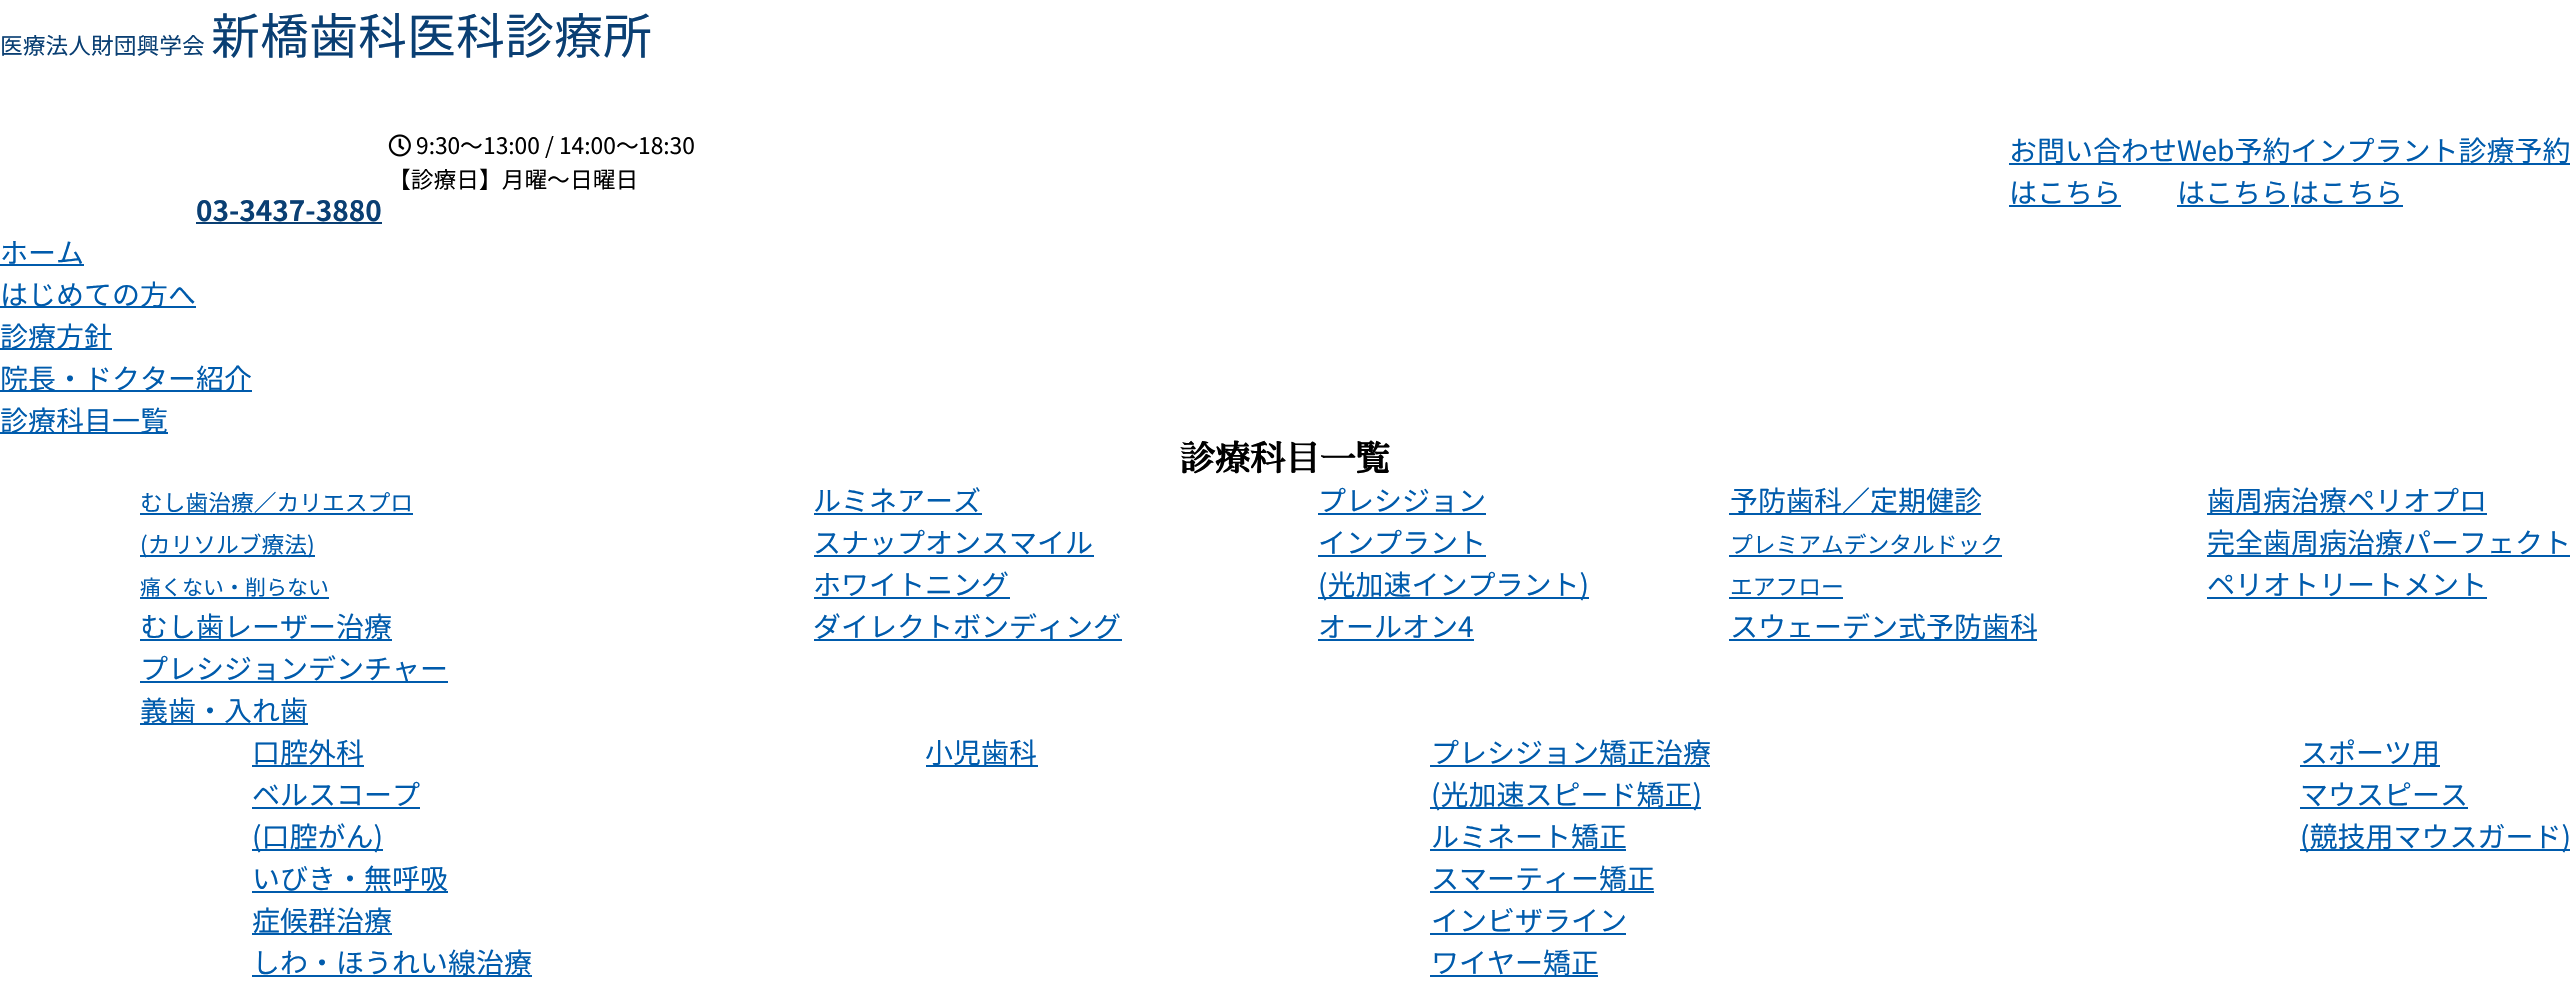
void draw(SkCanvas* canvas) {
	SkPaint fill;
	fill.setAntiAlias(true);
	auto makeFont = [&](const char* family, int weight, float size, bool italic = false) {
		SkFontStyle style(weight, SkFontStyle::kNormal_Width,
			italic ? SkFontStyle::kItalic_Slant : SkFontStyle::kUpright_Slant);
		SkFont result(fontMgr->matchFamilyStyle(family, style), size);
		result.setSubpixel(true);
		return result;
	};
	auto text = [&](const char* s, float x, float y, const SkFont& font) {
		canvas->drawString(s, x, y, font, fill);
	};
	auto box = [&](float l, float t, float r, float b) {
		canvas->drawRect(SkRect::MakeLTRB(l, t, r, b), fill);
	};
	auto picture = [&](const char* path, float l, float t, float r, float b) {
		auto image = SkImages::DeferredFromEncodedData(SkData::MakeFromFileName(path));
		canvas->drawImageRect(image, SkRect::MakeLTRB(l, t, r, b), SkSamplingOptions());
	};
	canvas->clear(0xFFFFFFFF);
	picture("image0.png", 388, 134, 411, 157);
	fill.setColor(0xFF0A3F73);
	box(196, 222, 382, 224);
	fill.setColor(0xFF005BAC);
	box(2009, 163, 2570, 165);
	box(2009, 205, 2121, 207);
	box(2177, 205, 2289, 207);
	box(2291, 205, 2403, 207);
	box(0, 264, 84, 266);
	box(0, 306, 196, 308);
	box(0, 348, 112, 350);
	box(0, 390, 252, 392);
	box(0, 432, 168, 434);
	box(140, 513, 413, 515);
	box(140, 555, 315, 557);
	box(140, 597, 329, 599);
	box(140, 639, 392, 641);
	box(140, 681, 448, 683);
	box(140, 723, 308, 725);
	box(814, 513, 982, 515);
	box(814, 555, 1094, 557);
	box(814, 597, 1010, 599);
	box(814, 639, 1122, 641);
	box(1318, 513, 1486, 515);
	box(1318, 555, 1486, 557);
	box(1318, 597, 1589, 599);
	box(1318, 639, 1474, 641);
	box(1729, 513, 1981, 515);
	box(1729, 555, 2002, 557);
	box(1729, 597, 1843, 599);
	box(1729, 639, 2037, 641);
	box(2207, 513, 2487, 515);
	box(2207, 555, 2570, 557);
	box(2207, 597, 2487, 599);
	box(252, 765, 364, 767);
	box(252, 807, 420, 809);
	box(252, 849, 383, 851);
	box(252, 891, 448, 893);
	box(252, 933, 392, 935);
	box(252, 975, 532, 977);
	box(926, 765, 1038, 767);
	box(1430, 765, 1710, 767);
	box(1430, 807, 1701, 809);
	box(1430, 849, 1626, 851);
	box(1430, 891, 1654, 893);
	box(1430, 933, 1626, 935);
	box(1430, 975, 1598, 977);
	box(2300, 765, 2440, 767);
	box(2300, 807, 2468, 809);
	box(2300, 849, 2570, 851);
	auto font1 = makeFont("Noto Sans JP", 400, 22.75f);
	fill.setColor(0xFF0A3F73);
	text("医療法人財団興学会", 0, 54, font1);
	auto font2 = makeFont("Noto Sans JP", 400, 49);
	text("新橋歯科医科診療所", 211, 54, font2);
	fill.setColor(0xFF000000);
	text("9:30", 416, 154, font1);
	auto font3 = makeFont("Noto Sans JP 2", 400, 22.75f);
	text("～", 460, 154, font3);
	text("13:00 / 14:00", 483, 154, font1);
	text("～", 616, 154, font3);
	text("18:30", 638, 154, font1);
	text("【診療日】月曜", 388, 188, font1);
	text("～", 547, 188, font3);
	text("日曜日", 570, 188, font1);
	auto font4 = makeFont("Noto Sans JP", 700, 28);
	fill.setColor(0xFF0A3F73);
	text("03-3437-3880", 196, 221, font4);
	auto font5 = makeFont("Noto Sans JP", 400, 28);
	fill.setColor(0xFF005BAC);
	text("お問い合わせWeb予約インプラント診療予約", 2009, 161, font5);
	text("はこちら", 2009, 203, font5);
	text("はこちら", 2177, 203, font5);
	text("はこちら", 2291, 203, font5);
	text("ホーム", 0, 263, font5);
	text("はじめての方へ", 0, 305, font5);
	text("診療方針", 0, 347, font5);
	text("院長・ドクター紹介", 0, 389, font5);
	text("診療科目一覧", 0, 431, font5);
	auto font6 = makeFont("Sawarabi Mincho", 700, 35);
	fill.setColor(0xFF000000);
	text("診療科目一覧", 1180, 471, font6);
	fill.setColor(0xFF005BAC);
	text("むし歯治療／カリエスプロ", 140, 511, font1);
	text("(カリソルブ療法)", 140, 553, font1);
	auto font7 = makeFont("Noto Sans JP", 400, 21);
	text("痛くない・削らない", 140, 595, font7);
	text("むし歯レーザー治療", 140, 637, font5);
	text("プレシジョンデンチャー", 140, 679, font5);
	text("義歯・入れ歯", 140, 721, font5);
	text("ルミネアーズ", 813, 511, font5);
	text("スナップオンスマイル", 813, 553, font5);
	text("ホワイトニング", 813, 595, font5);
	text("ダイレクトボンディング", 813, 637, font5);
	text("プレシジョン", 1318, 511, font5);
	text("インプラント", 1318, 553, font5);
	text("(光加速インプラント)", 1318, 595, font5);
	text("オールオン4", 1318, 637, font5);
	text("予防歯科／定期健診", 1730, 511, font5);
	text("プレミアムデンタルドック", 1730, 553, font1);
	text("エアフロー", 1730, 595, font1);
	text("スウェーデン式予防歯科", 1730, 637, font5);
	text("歯周病治療ペリオプロ", 2207, 511, font5);
	text("完全歯周病治療パーフェクト", 2207, 553, font5);
	text("ペリオトリートメント", 2207, 595, font5);
	text("口腔外科", 252, 763, font5);
	text("ベルスコープ", 252, 805, font5);
	text("(口腔がん)", 252, 847, font5);
	text("いびき・無呼吸", 252, 889, font5);
	text("症候群治療", 252, 931, font5);
	text("しわ・ほうれい線治療", 252, 973, font5);
	text("小児歯科", 925, 763, font5);
	text("プレシジョン矯正治療", 1431, 763, font5);
	text("(光加速スピード矯正)", 1431, 805, font5);
	text("ルミネート矯正", 1431, 847, font5);
	text("スマーティー矯正", 1431, 889, font5);
	text("インビザライン", 1431, 931, font5);
	text("ワイヤー矯正", 1431, 973, font5);
	text("スポーツ用", 2300, 763, font5);
	text("マウスピース", 2300, 805, font5);
	text("(競技用マウスガード)", 2300, 847, font5);
}
